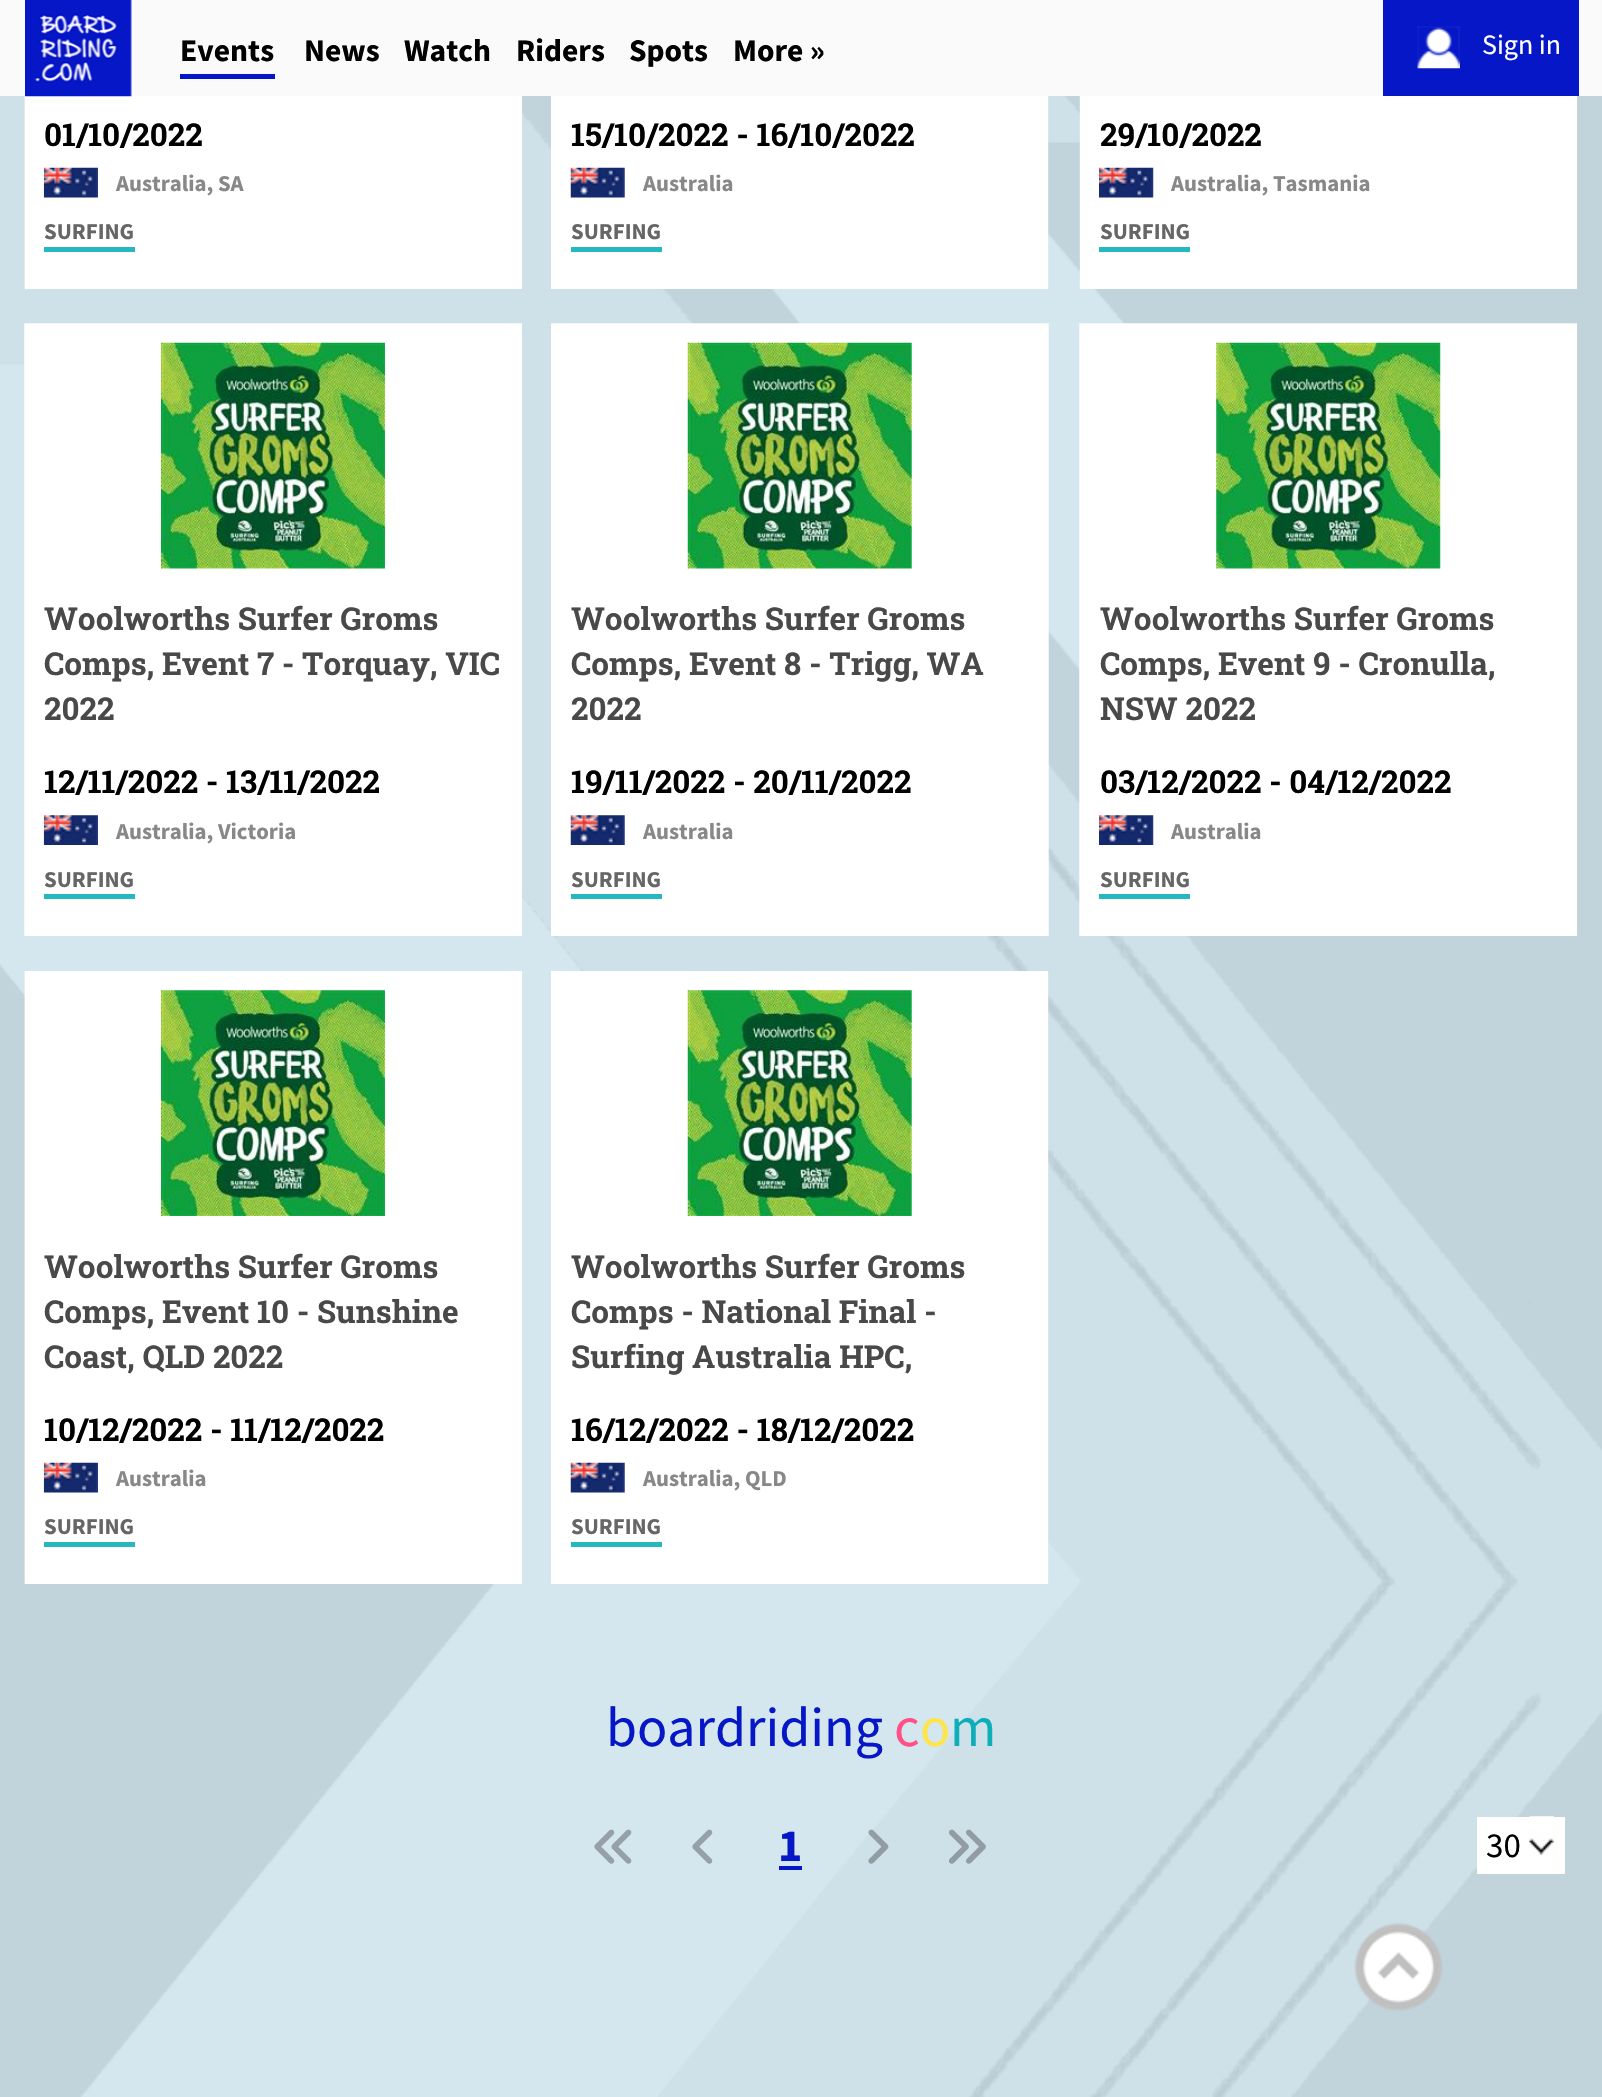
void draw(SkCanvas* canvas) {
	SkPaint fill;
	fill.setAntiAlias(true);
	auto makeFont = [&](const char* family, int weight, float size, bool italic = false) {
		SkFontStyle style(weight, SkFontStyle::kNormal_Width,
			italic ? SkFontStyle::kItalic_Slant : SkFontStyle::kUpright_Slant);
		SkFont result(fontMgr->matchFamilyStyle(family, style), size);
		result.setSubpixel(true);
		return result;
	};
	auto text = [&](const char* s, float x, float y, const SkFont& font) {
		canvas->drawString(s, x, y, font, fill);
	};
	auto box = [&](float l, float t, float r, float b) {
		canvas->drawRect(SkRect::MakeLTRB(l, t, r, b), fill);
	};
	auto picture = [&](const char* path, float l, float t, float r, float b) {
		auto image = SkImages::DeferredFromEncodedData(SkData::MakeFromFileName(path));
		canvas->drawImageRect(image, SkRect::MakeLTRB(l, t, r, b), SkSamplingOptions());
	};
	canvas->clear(0xFFFFFFFF);
	fill.setColor(0xFFFAFAFA);
	box(0, 0, 1602, 96);
	picture("image2.png", 0, 96, 1602, 2097);
	fill.setColor(0xFFFFFFFF);
	box(25, 96, 522, 289);
	picture("image0.png", 25, 0, 132, 97);
	fill.setColor(0xFF0517C6);
	box(180, 74, 275, 79);
	box(1383, 0, 1579, 96);
	picture("image1.png", 1417, 26, 1460, 69);
	picture("image3.png", 24, 96, 25, 289);
	picture("image4.png", 43, 167, 98, 198);
	fill.setColor(0xFF27B7C0);
	box(44, 247, 135, 252);
	fill.setColor(0xFFFFFFFF);
	box(551, 96, 1048, 289);
	fill.setColor(0x2EFFFFFF);
	box(1048, 96, 1049, 288);
	picture("image5.png", 570, 167, 625, 198);
	fill.setColor(0xFF27B7C0);
	box(571, 247, 662, 252);
	fill.setColor(0xFFFFFFFF);
	box(1080, 96, 1577, 289);
	fill.setColor(0x2EFFFFFF);
	box(1079, 96, 1080, 288);
	picture("image6.png", 1099, 167, 1154, 198);
	fill.setColor(0xFF27B7C0);
	box(1099, 247, 1190, 252);
	fill.setColor(0xFFFFFFFF);
	box(25, 324, 522, 936);
	fill.setColor(0xB3FFFFFF);
	box(24, 323, 522, 936);
	picture("image7.png", 161, 342, 385, 569);
	picture("image8.png", 43, 815, 98, 845);
	fill.setColor(0xFF27B7C0);
	box(44, 894, 135, 899);
	fill.setColor(0xFFFFFFFF);
	box(551, 324, 1048, 936);
	fill.setColor(0xB3FFFFFF);
	box(551, 323, 1049, 936);
	picture("image9.png", 687, 342, 912, 569);
	picture("image10.png", 570, 815, 625, 845);
	fill.setColor(0xFF27B7C0);
	box(571, 894, 662, 899);
	fill.setColor(0xFFFFFFFF);
	box(1080, 324, 1577, 936);
	fill.setColor(0xB3FFFFFF);
	box(1079, 323, 1577, 936);
	picture("image11.png", 1216, 342, 1441, 569);
	picture("image12.png", 1099, 815, 1154, 845);
	fill.setColor(0xFF27B7C0);
	box(1099, 894, 1190, 899);
	fill.setColor(0xFFFFFFFF);
	box(25, 971, 522, 1584);
	picture("image13.png", 24, 971, 25, 1584);
	picture("image14.png", 161, 990, 385, 1216);
	picture("image4.png", 43, 1462, 98, 1493);
	fill.setColor(0xFF27B7C0);
	box(44, 1542, 135, 1547);
	fill.setColor(0xFFFFFFFF);
	box(551, 971, 1048, 1584);
	fill.setColor(0x2EFFFFFF);
	box(1048, 971, 1049, 1583);
	picture("image15.png", 687, 990, 912, 1216);
	picture("image5.png", 570, 1462, 625, 1493);
	fill.setColor(0xFF27B7C0);
	box(571, 1542, 662, 1547);
	picture("image16.png", 594, 1829, 632, 1864);
	picture("image17.png", 692, 1829, 713, 1864);
	fill.setColor(0xFF0517C6);
	box(779, 1866, 802, 1870);
	picture("image18.png", 868, 1829, 889, 1864);
	picture("image19.png", 949, 1829, 986, 1864);
	fill.setColor(0xFFFFFFFF);
	box(1477, 1817, 1565, 1874);
	picture("image20.png", 1529, 1816, 1554, 1856);
	picture("image21.png", 1354, 1923, 1443, 2011);
	auto font1 = makeFont("Source Sans Pro", 700, 31.5f);
	fill.setColor(0xFF000000);
	text("Events", 180, 61, font1);
	text("News", 304, 61, font1);
	text("Watch", 404, 61, font1);
	text("Riders", 516, 61, font1);
	text("Spots", 629, 61, font1);
	text("More »", 733, 61, font1);
	auto font2 = makeFont("Source Sans Pro", 400, 28);
	fill.setColor(0xFFFFFFFF);
	text("Sign in", 1482, 54, font2);
	auto font3 = makeFont("Roboto Slab", 700, 31.5f);
	fill.setColor(0xFF000000);
	text("01/10/2022", 44, 146, font3);
	auto font4 = makeFont("Source Sans Pro", 700, 22.75f);
	fill.setColor(0xFF888888);
	text("Australia, SA", 116, 191, font4);
	fill.setColor(0xFF666666);
	text("SURFING", 44, 239, font4);
	fill.setColor(0xFF000000);
	text("15/10/2022 - 16/10/2022", 571, 146, font3);
	fill.setColor(0xFF888888);
	text("Australia", 643, 191, font4);
	fill.setColor(0xFF666666);
	text("SURFING", 571, 239, font4);
	fill.setColor(0xFF000000);
	text("29/10/2022", 1100, 146, font3);
	fill.setColor(0xFF888888);
	text("Australia, Tasmania", 1171, 191, font4);
	fill.setColor(0xFF666666);
	text("SURFING", 1100, 239, font4);
	fill.setColor(0xFF494949);
	text("Woolworths Surfer Groms", 44, 630, font3);
	text("Comps, Event 7 - Torquay, VIC", 44, 675, font3);
	text("2022", 44, 720, font3);
	fill.setColor(0xFF000000);
	text("12/11/2022 - 13/11/2022", 44, 793, font3);
	fill.setColor(0xFF888888);
	text("Australia, Victoria", 116, 839, font4);
	fill.setColor(0xFF666666);
	text("SURFING", 44, 887, font4);
	fill.setColor(0xFF494949);
	text("Woolworths Surfer Groms", 571, 630, font3);
	text("Comps, Event 8 - Trigg, WA", 571, 675, font3);
	text("2022", 571, 720, font3);
	fill.setColor(0xFF000000);
	text("19/11/2022 - 20/11/2022", 571, 793, font3);
	fill.setColor(0xFF888888);
	text("Australia", 643, 839, font4);
	fill.setColor(0xFF666666);
	text("SURFING", 571, 887, font4);
	fill.setColor(0xFF494949);
	text("Woolworths Surfer Groms", 1100, 630, font3);
	text("Comps, Event 9 - Cronulla,", 1100, 675, font3);
	text("NSW 2022", 1100, 720, font3);
	fill.setColor(0xFF000000);
	text("03/12/2022 - 04/12/2022", 1100, 793, font3);
	fill.setColor(0xFF888888);
	text("Australia", 1171, 839, font4);
	fill.setColor(0xFF666666);
	text("SURFING", 1100, 887, font4);
	fill.setColor(0xFF494949);
	text("Woolworths Surfer Groms", 44, 1278, font3);
	text("Comps, Event 10 - Sunshine", 44, 1323, font3);
	text("Coast, QLD 2022", 44, 1368, font3);
	fill.setColor(0xFF000000);
	text("10/12/2022 - 11/12/2022", 44, 1441, font3);
	fill.setColor(0xFF888888);
	text("Australia", 116, 1486, font4);
	fill.setColor(0xFF666666);
	text("SURFING", 44, 1534, font4);
	fill.setColor(0xFF494949);
	text("Woolworths Surfer Groms", 571, 1278, font3);
	text("Comps - National Final -", 571, 1323, font3);
	text("Surfing Australia HPC,", 571, 1368, font3);
	fill.setColor(0xFF000000);
	text("16/12/2022 - 18/12/2022", 571, 1441, font3);
	fill.setColor(0xFF888888);
	text("Australia, QLD", 643, 1486, font4);
	fill.setColor(0xFF666666);
	text("SURFING", 571, 1534, font4);
	auto font5 = makeFont("Source Sans Pro", 400, 56);
	fill.setColor(0xFF0517C6);
	text("boardriding", 606, 1746, font5);
	fill.setColor(0xFFFF5087);
	text("c", 894, 1746, font5);
	fill.setColor(0xFFFEE54D);
	text("o", 920, 1746, font5);
	fill.setColor(0xFF0CAEB9);
	text("m", 950, 1746, font5);
	auto font6 = makeFont("Source Sans Pro", 700, 46);
	fill.setColor(0xFF0517C6);
	text("1", 778, 1861, font6);
	auto font7 = makeFont("Source Sans Pro", 400, 35);
	fill.setColor(0xFF000000);
	text("30", 1486, 1857, font7);
}
